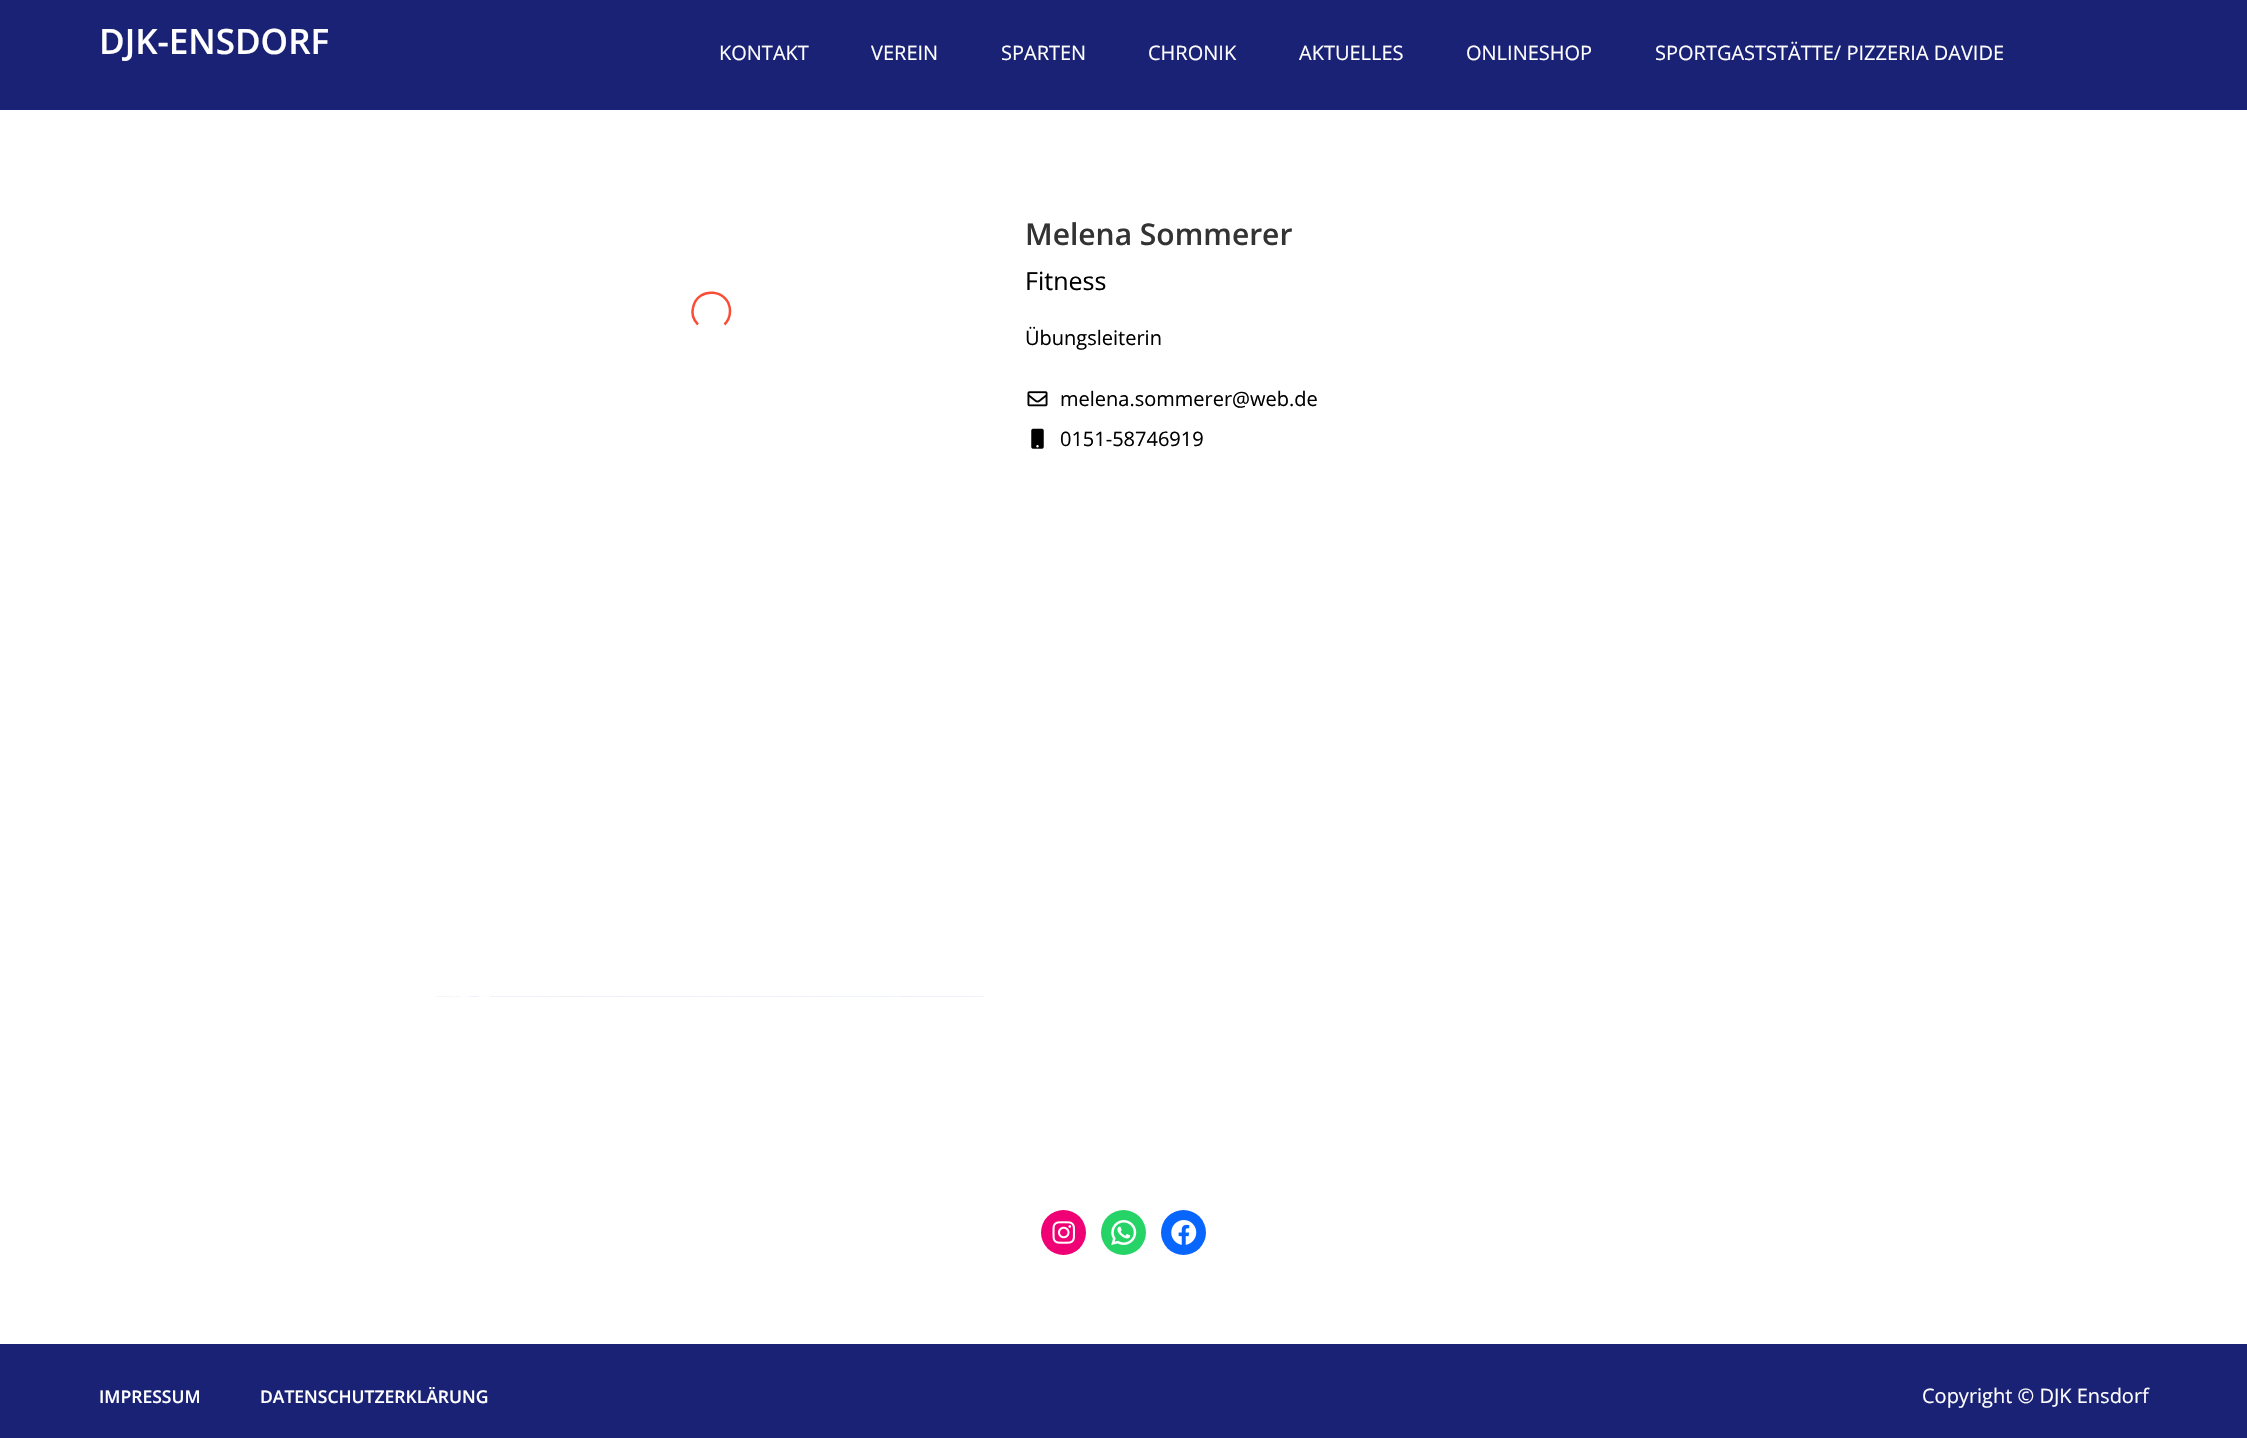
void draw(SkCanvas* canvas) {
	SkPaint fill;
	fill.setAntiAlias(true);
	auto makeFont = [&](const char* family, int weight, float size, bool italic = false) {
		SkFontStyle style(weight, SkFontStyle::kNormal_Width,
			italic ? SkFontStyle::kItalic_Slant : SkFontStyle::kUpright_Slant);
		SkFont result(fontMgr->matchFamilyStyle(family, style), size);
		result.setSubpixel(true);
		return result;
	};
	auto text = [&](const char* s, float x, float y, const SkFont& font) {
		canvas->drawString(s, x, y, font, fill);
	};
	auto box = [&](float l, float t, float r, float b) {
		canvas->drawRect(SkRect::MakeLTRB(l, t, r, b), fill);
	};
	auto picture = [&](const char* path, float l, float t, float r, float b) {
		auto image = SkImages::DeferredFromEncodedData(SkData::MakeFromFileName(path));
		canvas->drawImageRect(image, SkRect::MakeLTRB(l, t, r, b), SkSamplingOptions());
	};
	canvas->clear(0xFFFFFFFF);
	fill.setColor(0xFF1A2276);
	box(0, 0, 2247, 110);
	fill.setStyle(SkPaint::kStroke_Style);
	fill.setStrokeWidth(2.5f);
	fill.setColor(0xFFFB4C35);
	canvas->drawPath(SkPathBuilder().moveTo(698, 324.5f).cubicTo(693.5f, 320, 691.5f, 313.5f, 693, 307.5f).cubicTo(697.5f, 285.5f, 730, 289, 730, 311).cubicTo(730, 316, 728, 321, 724.5f, 324.5f).detach(), fill);
	picture("image0.png", 436, 996, 987, 997);
	picture("image1.png", 1027, 391, 1048, 407);
	picture("image2.png", 1031, 428, 1044, 449);
	fill.setStyle(SkPaint::kFill_Style);
	fill.setColor(0xFFF00075);
	canvas->drawCircle(1063.5f, 1232.5f, 22.5f, fill);
	picture("image3.png", 1052, 1221, 1075, 1244);
	fill.setColor(0xFF25D366);
	canvas->drawCircle(1123.5f, 1232.5f, 22.5f, fill);
	picture("image4.png", 1111, 1220, 1137, 1245);
	fill.setColor(0xFF0866FF);
	canvas->drawCircle(1183.5f, 1232.5f, 22.5f, fill);
	picture("image5.png", 1171, 1220, 1197, 1245);
	fill.setColor(0xFF1A2276);
	box(0, 1344, 2247, 1438);
	auto font1 = makeFont("Open Sans", 600, 35);
	fill.setColor(0xFFFFFFFF);
	text("DJK-ENSDORF", 99, 54, font1);
	auto font2 = makeFont("Open Sans", 400, 20);
	text("KONTAKT", 719, 60, font2);
	text("VEREIN", 871, 60, font2);
	text("SPARTEN", 1001, 60, font2);
	text("CHRONIK", 1148, 60, font2);
	text("AKTUELLES", 1299, 60, font2);
	text("ONLINESHOP", 1466, 60, font2);
	text("SPORTGASTSTÄTTE/ PIZZERIA DAVIDE", 1655, 60, font2);
	auto font3 = makeFont("Open Sans", 600, 30);
	fill.setColor(0xFF333333);
	text("Melena Sommerer", 1025, 245, font3);
	auto font4 = makeFont("Open Sans", 400, 25);
	fill.setColor(0xFF000000);
	text("Fitness", 1025, 290, font4);
	text("Übungsleiterin", 1025, 345, font2);
	text("melena.sommerer@web.de", 1060, 406, font2);
	text("0151-58746919", 1060, 446, font2);
	auto font5 = makeFont("Open Sans", 600, 17.5f);
	fill.setColor(0xFFFFFFFF);
	text("IMPRESSUM", 99, 1403, font5);
	text("DATENSCHUTZERKLÄRUNG", 260, 1403, font5);
	text("Copyright © DJK Ensdorf", 1922, 1403, font2);
}
